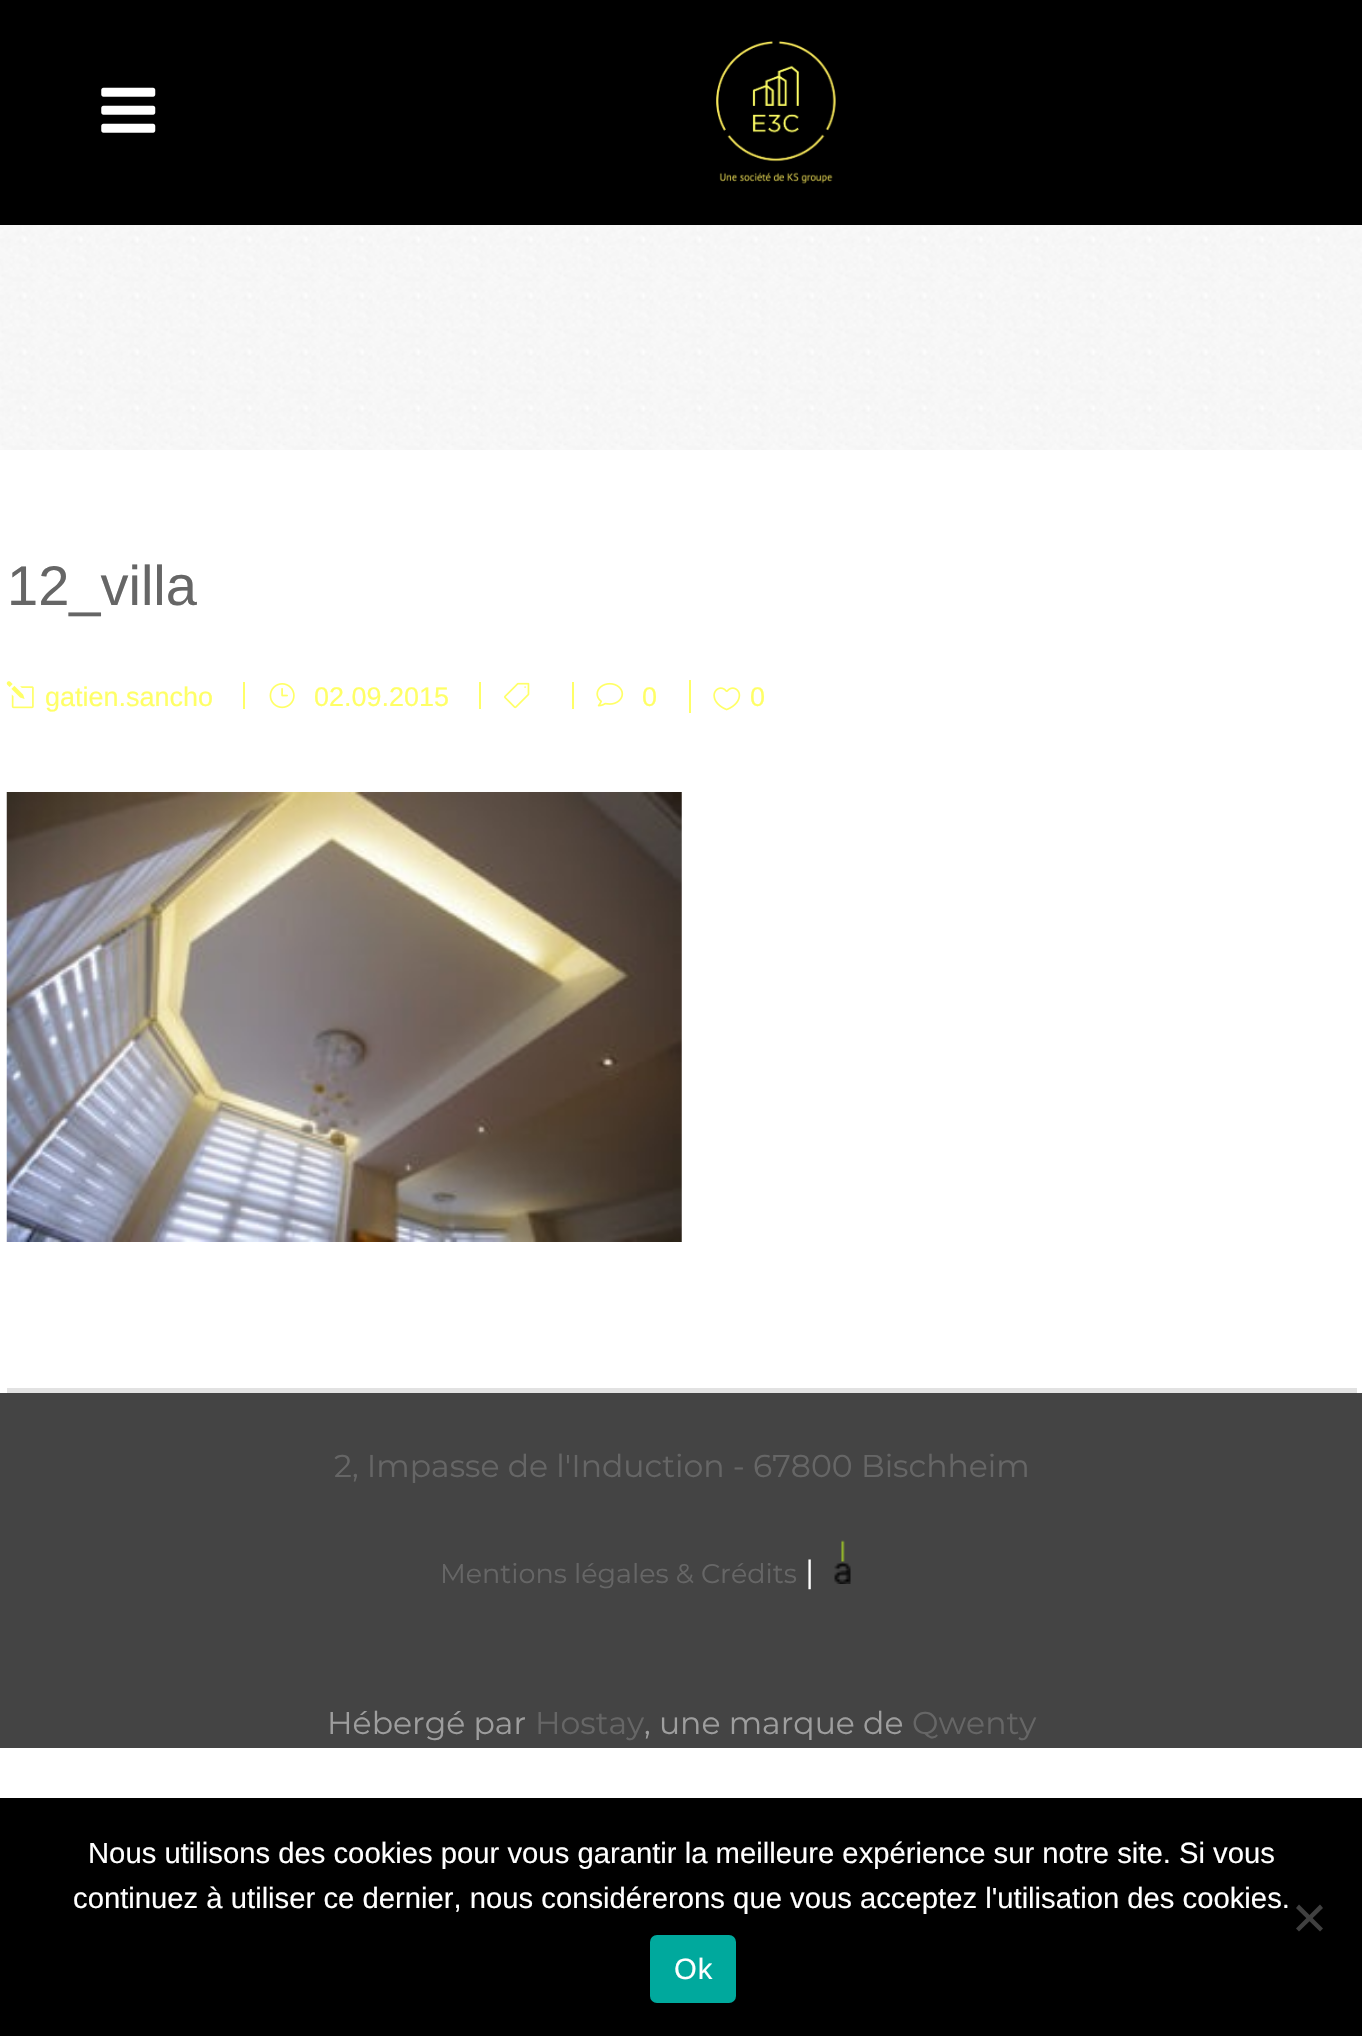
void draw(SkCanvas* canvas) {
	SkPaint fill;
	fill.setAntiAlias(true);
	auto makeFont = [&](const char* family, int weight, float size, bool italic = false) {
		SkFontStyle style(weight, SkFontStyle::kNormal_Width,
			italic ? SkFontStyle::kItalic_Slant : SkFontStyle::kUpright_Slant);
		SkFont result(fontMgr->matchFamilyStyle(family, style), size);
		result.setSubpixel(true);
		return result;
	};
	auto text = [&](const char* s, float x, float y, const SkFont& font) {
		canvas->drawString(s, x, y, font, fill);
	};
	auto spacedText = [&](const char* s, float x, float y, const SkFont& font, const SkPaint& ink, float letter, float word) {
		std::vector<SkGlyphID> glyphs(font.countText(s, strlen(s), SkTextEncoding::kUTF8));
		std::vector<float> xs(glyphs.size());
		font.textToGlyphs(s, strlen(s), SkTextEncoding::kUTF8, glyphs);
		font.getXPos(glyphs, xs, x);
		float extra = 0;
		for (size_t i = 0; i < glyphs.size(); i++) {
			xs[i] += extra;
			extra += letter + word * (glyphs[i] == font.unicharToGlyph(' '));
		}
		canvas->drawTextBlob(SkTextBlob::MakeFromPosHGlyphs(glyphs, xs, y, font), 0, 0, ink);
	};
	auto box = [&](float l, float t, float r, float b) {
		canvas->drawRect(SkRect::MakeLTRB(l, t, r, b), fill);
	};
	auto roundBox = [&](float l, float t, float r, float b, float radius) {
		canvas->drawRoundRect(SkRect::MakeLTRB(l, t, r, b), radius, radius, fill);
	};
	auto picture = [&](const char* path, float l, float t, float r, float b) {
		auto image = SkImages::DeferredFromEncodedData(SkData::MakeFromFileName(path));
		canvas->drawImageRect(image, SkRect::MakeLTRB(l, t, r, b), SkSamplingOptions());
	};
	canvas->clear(0xFFFFFFFF);
	fill.setColor(0xFF000000);
	box(0, 0, 1362, 225);
	picture("image0.png", 101, 87, 156, 133);
	picture("image1.png", 716, 41, 836, 184);
	picture("image2.png", 0, 225, 1362, 450);
	fill.setColor(0xFFE2E2E2);
	box(7, 1388, 1357, 1393);
	picture("image3.png", 6, 681, 34, 709);
	picture("image4.png", 269, 683, 295, 709);
	fill.setColor(0xFFFFFF66);
	box(243, 682, 245, 709);
	box(479, 682, 481, 709);
	picture("image5.png", 504, 682, 530, 709);
	picture("image6.png", 596, 682, 624, 707);
	box(572, 682, 574, 709);
	box(689, 680, 691, 713);
	picture("image7.png", 713, 687, 741, 711);
	picture("image8.png", 6, 792, 682, 1242);
	fill.setColor(0xFF444444);
	box(0, 1393, 1362, 1748);
	picture("image9.png", 834, 1540, 851, 1584);
	fill.setColor(0xFF000000);
	box(0, 1798, 1362, 2036);
	fill.setColor(0xFF404040);
	canvas->drawPath(SkPathBuilder().moveTo(1320, 1904.5f).lineTo(1323, 1908).lineTo(1299, 1931.5f).lineTo(1296, 1928.5f).close().detach(), fill);
	canvas->drawPath(SkPathBuilder().moveTo(1296, 1908).lineTo(1299, 1904.5f).lineTo(1323, 1928.5f).lineTo(1320, 1931.5f).close().detach(), fill);
	fill.setColor(0xFF00A99D);
	roundBox(650, 1935, 736, 2003, 7);
	auto font1 = makeFont("Liberation Sans", 400, 56);
	fill.setColor(0xFF666666);
	text("12_villa", 7, 605, font1);
	auto font2 = makeFont("Liberation Sans", 400, 27);
	fill.setColor(0xFFFFFF66);
	text("gatien.sancho", 45, 706, font2);
	text("02.09.2015", 314, 706, font2);
	text("0", 642, 706, font2);
	text("0", 750, 706, font2);
	auto font3 = makeFont("Montserrat", 400, 31.5f);
	fill.setColor(0xFF666666);
	text("2, Impasse de l'Induction - 67800 Bischheim", 334, 1477, font3);
	auto font4 = makeFont("Montserrat", 400, 27);
	text("Mentions légales & Crédits", 440, 1583, font4);
	fill.setColor(0xFFFFFFFF);
	text("|", 805, 1583, font3);
	fill.setColor(0xFF9E9E9E);
	text("Hébergé par", 327, 1734, font3);
	fill.setColor(0xFF666666);
	text("Hostay", 535, 1734, font3);
	fill.setColor(0xFF9E9E9E);
	text(", une marque de", 644, 1734, font3);
	fill.setColor(0xFF666666);
	text("Qwenty", 912, 1734, font3);
	auto font5 = makeFont("Liberation Sans", 400, 29.25f);
	fill.setColor(0xFFFFFFFF);
	text("Nous utilisons des cookies pour vous garantir la meilleure expérience sur notre site. Si vous", 88, 1863, font5);
	text("continuez à utiliser ce dernier, nous considérerons que vous acceptez l'utilisation des cookies.", 73, 1908, font5);
	spacedText("Ok", 674, 1979, font5, fill, 1, 0);
}
